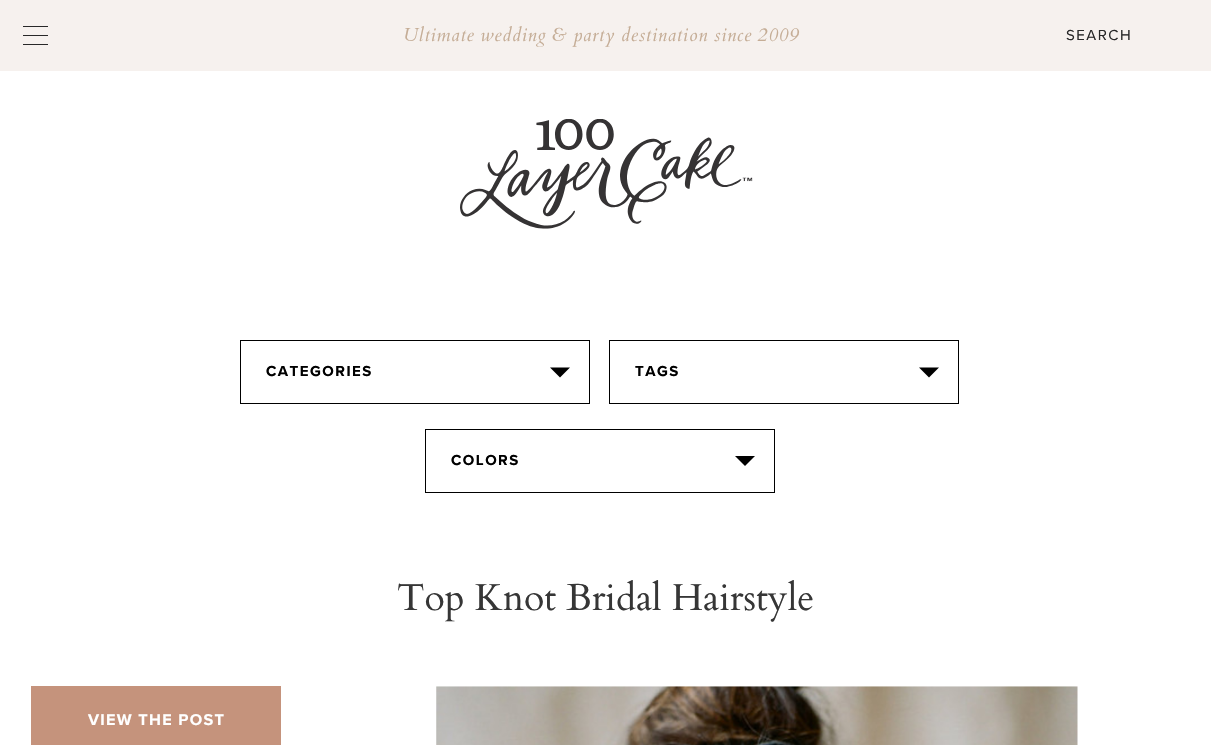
void draw(SkCanvas* canvas) {
	SkPaint fill;
	fill.setAntiAlias(true);
	auto makeFont = [&](const char* family, int weight, float size, bool italic = false) {
		SkFontStyle style(weight, SkFontStyle::kNormal_Width,
			italic ? SkFontStyle::kItalic_Slant : SkFontStyle::kUpright_Slant);
		SkFont result(fontMgr->matchFamilyStyle(family, style), size);
		result.setSubpixel(true);
		return result;
	};
	auto text = [&](const char* s, float x, float y, const SkFont& font) {
		canvas->drawString(s, x, y, font, fill);
	};
	auto spacedText = [&](const char* s, float x, float y, const SkFont& font, const SkPaint& ink, float letter, float word) {
		std::vector<SkGlyphID> glyphs(font.countText(s, strlen(s), SkTextEncoding::kUTF8));
		std::vector<float> xs(glyphs.size());
		font.textToGlyphs(s, strlen(s), SkTextEncoding::kUTF8, glyphs);
		font.getXPos(glyphs, xs, x);
		float extra = 0;
		for (size_t i = 0; i < glyphs.size(); i++) {
			xs[i] += extra;
			extra += letter + word * (glyphs[i] == font.unicharToGlyph(' '));
		}
		canvas->drawTextBlob(SkTextBlob::MakeFromPosHGlyphs(glyphs, xs, y, font), 0, 0, ink);
	};
	auto box = [&](float l, float t, float r, float b) {
		canvas->drawRect(SkRect::MakeLTRB(l, t, r, b), fill);
	};
	auto picture = [&](const char* path, float l, float t, float r, float b) {
		auto image = SkImages::DeferredFromEncodedData(SkData::MakeFromFileName(path));
		canvas->drawImageRect(image, SkRect::MakeLTRB(l, t, r, b), SkSamplingOptions());
	};
	canvas->clear(0xFFFFFFFF);
	fill.setColor(0xFFF6F1EE);
	box(0, 0, 1211, 71);
	fill.setColor(0xFF282828);
	box(23, 26, 48, 27);
	box(23, 35, 48, 36);
	box(23, 44, 48, 45);
	picture("image0.png", 460, 119, 753, 229);
	fill.setStyle(SkPaint::kStroke_Style);
	fill.setStrokeWidth(1);
	fill.setColor(0xFF000000);
	canvas->drawRect(SkRect::MakeLTRB(240.5f, 340.5f, 589.5f, 403.5f), fill);
	fill.setStyle(SkPaint::kFill_Style);
	canvas->drawPath(SkPathBuilder().moveTo(550, 367.5f).lineTo(570, 367.5f).lineTo(560, 377.5f).close().detach(), fill);
	fill.setStyle(SkPaint::kStroke_Style);
	canvas->drawRect(SkRect::MakeLTRB(609.5f, 340.5f, 958.5f, 403.5f), fill);
	fill.setStyle(SkPaint::kFill_Style);
	canvas->drawPath(SkPathBuilder().moveTo(919, 367.5f).lineTo(939, 367.5f).lineTo(929, 377.5f).close().detach(), fill);
	fill.setStyle(SkPaint::kStroke_Style);
	canvas->drawRect(SkRect::MakeLTRB(425.5f, 429.5f, 774.5f, 492.5f), fill);
	fill.setStyle(SkPaint::kFill_Style);
	canvas->drawPath(SkPathBuilder().moveTo(735, 456).lineTo(755, 456).lineTo(745, 466).close().detach(), fill);
	fill.setColor(0xFFC5937C);
	box(31, 686, 281, 745);
	picture("image1.png", 436, 686, 1078, 745);
	auto font1 = makeFont("Cardo", 400, 18.75f, true);
	fill.setColor(0xFFC5AD96);
	spacedText("Ultimate wedding & party destination since 2009", 403, 41, font1, fill, 0.75f, 0);
	auto font2 = makeFont("Proxima Nova", 400, 15);
	fill.setColor(0xFF282828);
	spacedText("SEARCH", 1066, 40, font2, fill, 1.5f, 0);
	auto font3 = makeFont("Proxima Nova", 700, 15);
	fill.setColor(0xFF000000);
	spacedText("CATEGORIES", 266, 376, font3, fill, 1.5f, 0);
	spacedText("TAGS", 635, 376, font3, fill, 1.5f, 0);
	spacedText("COLORS", 451, 465, font3, fill, 1.5f, 0);
	auto font4 = makeFont("Cardo", 400, 37.5f);
	fill.setColor(0xFF363636);
	text("Top Knot Bridal Hairstyle", 397, 610, font4);
	auto font5 = makeFont("Proxima Nova", 700, 16.25f);
	fill.setColor(0xFFFFFFFF);
	spacedText("VIEW THE POST", 88, 725, font5, fill, 1.25f, 0);
}
